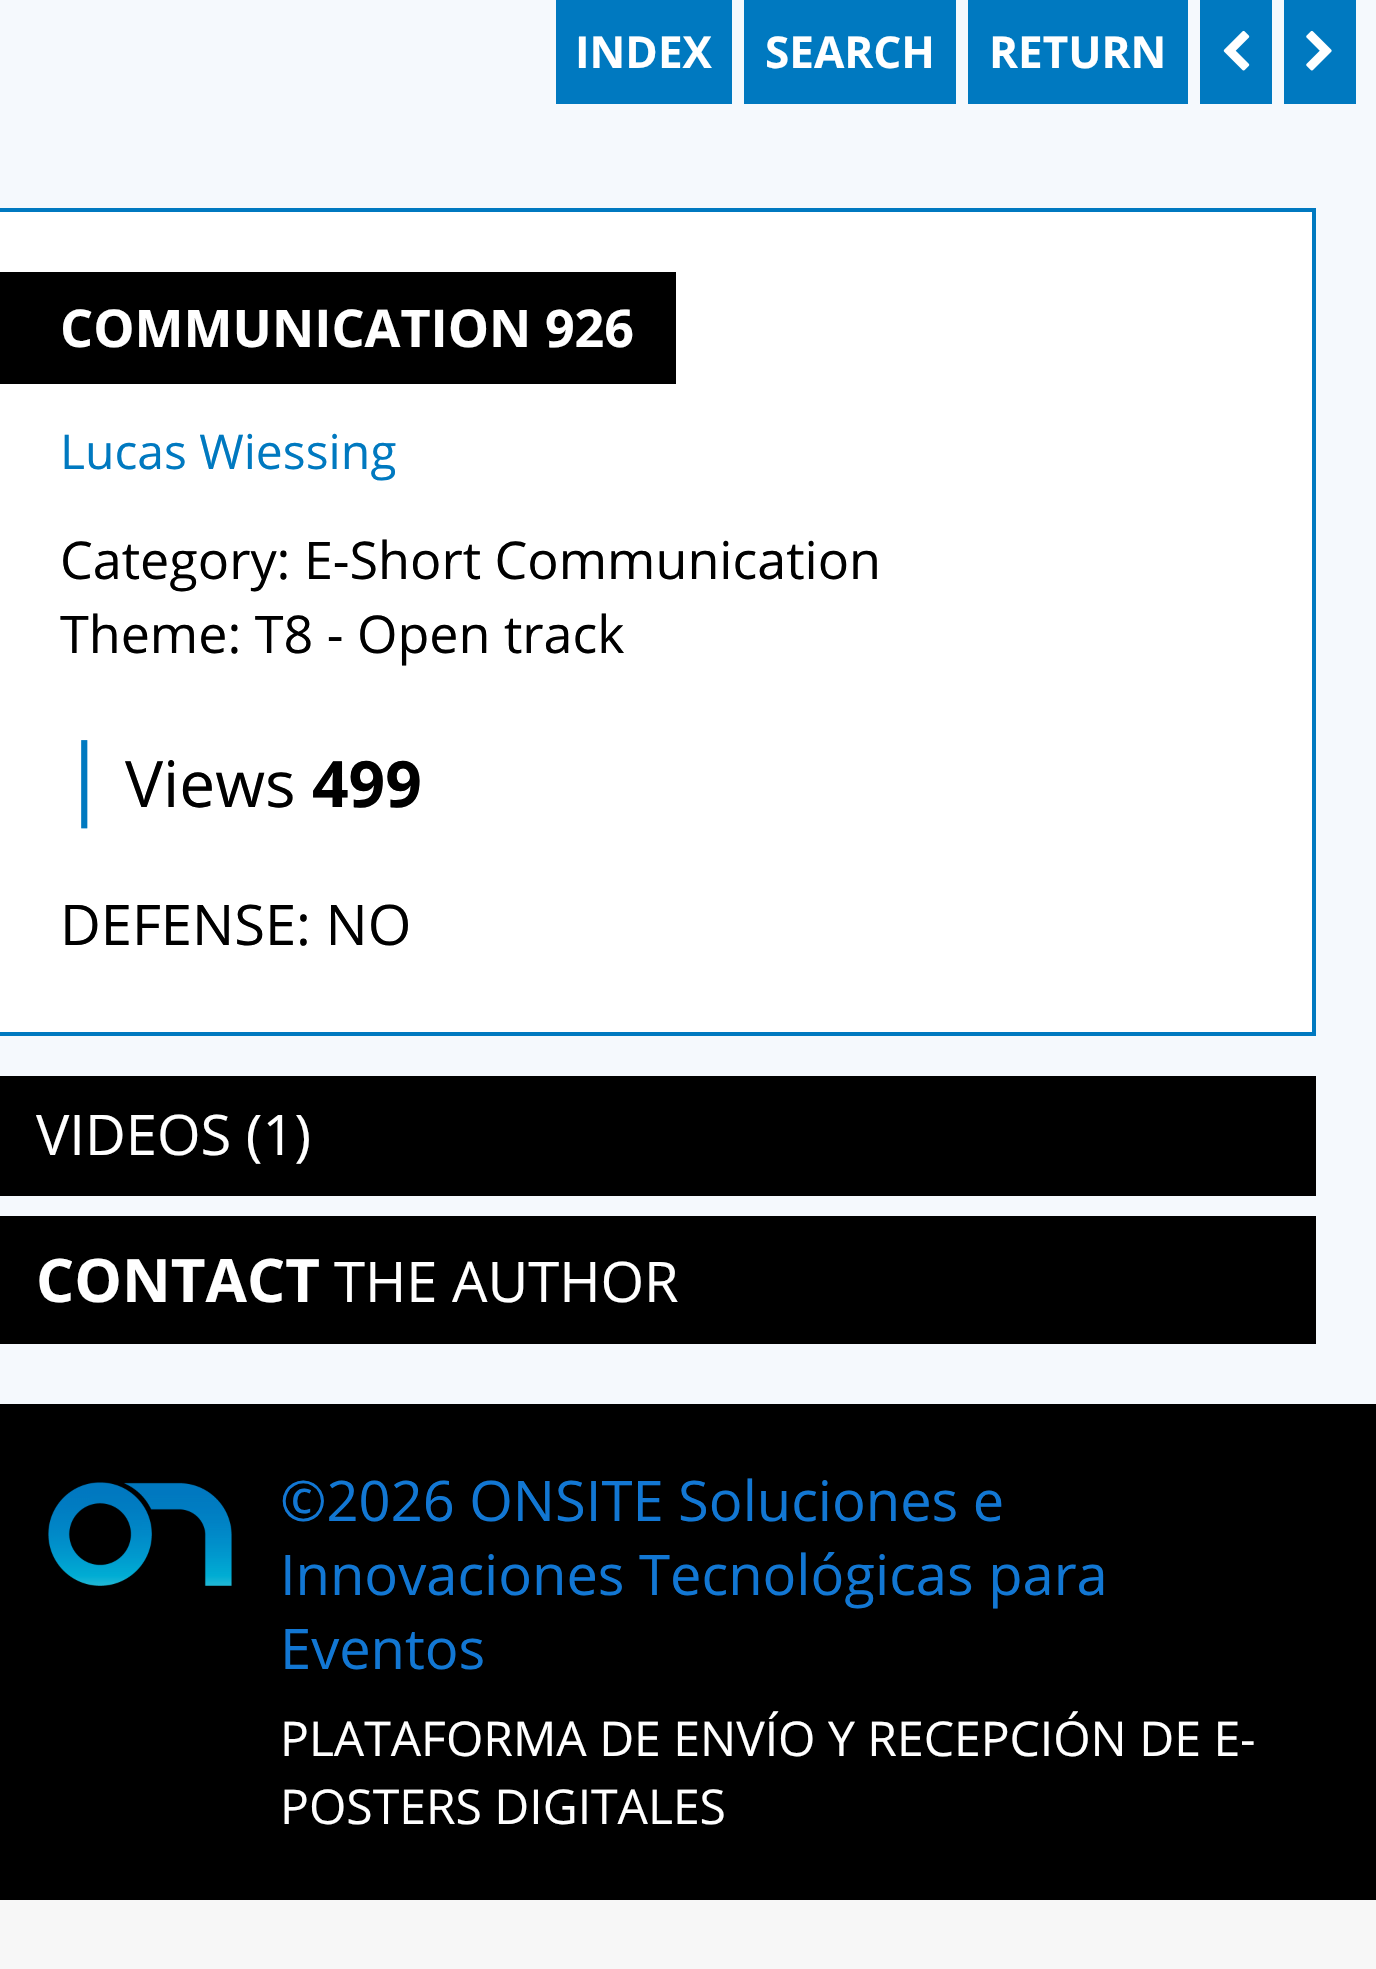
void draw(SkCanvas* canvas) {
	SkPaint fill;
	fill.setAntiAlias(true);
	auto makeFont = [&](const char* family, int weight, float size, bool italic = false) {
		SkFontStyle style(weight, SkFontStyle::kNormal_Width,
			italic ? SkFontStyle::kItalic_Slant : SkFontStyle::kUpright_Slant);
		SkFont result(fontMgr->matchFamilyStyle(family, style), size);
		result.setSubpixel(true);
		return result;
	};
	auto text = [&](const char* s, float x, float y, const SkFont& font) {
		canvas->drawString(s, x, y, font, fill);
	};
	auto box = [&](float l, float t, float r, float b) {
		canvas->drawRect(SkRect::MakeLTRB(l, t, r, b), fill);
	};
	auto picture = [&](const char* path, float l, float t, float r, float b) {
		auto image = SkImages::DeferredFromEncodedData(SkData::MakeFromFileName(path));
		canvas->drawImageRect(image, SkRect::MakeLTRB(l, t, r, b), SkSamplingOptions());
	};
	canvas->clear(0xFFF7F7F7);
	fill.setColor(0xFFF5F9FD);
	box(0, 0, 1376, 1404);
	fill.setColor(0xFF0079C0);
	box(556, 0, 732, 104);
	box(744, 0, 956, 104);
	box(968, 0, 1188, 104);
	box(1200, 0, 1272, 104);
	picture("image0.png", 1223, 30, 1250, 71);
	box(1284, 0, 1356, 104);
	picture("image1.png", 1306, 30, 1332, 71);
	fill.setColor(0xFFFFFFFF);
	box(0, 212, 1312, 1032);
	fill.setColor(0xFF0079C0);
	box(0, 208, 1316, 212);
	box(1312, 208, 1316, 1036);
	box(0, 1032, 1316, 1036);
	fill.setColor(0xFF000000);
	box(0, 272, 676, 384);
	box(0, 1076, 1316, 1196);
	box(0, 1216, 1316, 1344);
	box(0, 1404, 1376, 1900);
	picture("image2.png", 48, 1482, 232, 1586);
	auto font1 = makeFont("Open Sans", 700, 44);
	fill.setColor(0xFFFFFFFF);
	text("INDEX", 575, 68, font1);
	text("SEARCH", 765, 68, font1);
	text("RETURN", 989, 68, font1);
	auto font2 = makeFont("Open Sans", 700, 52);
	text("COMMUNICATION 926", 60, 347, font2);
	auto font3 = makeFont("Open Sans", 400, 48);
	fill.setColor(0xFF0079C0);
	text("Lucas Wiessing", 60, 469, font3);
	auto font4 = makeFont("Open Sans", 400, 52);
	fill.setColor(0xFF000000);
	text("Category: E-Short Communication", 60, 579, font4);
	text("Theme: T8 - Open track", 60, 653, font4);
	auto font5 = makeFont("Open Sans", 400, 88);
	fill.setColor(0xFF0079C0);
	text("|", 60, 807, font5);
	auto font6 = makeFont("Open Sans", 400, 64);
	fill.setColor(0xFF000000);
	text("Views", 125, 807, font6);
	auto font7 = makeFont("Open Sans", 700, 64);
	text("499", 312, 807, font7);
	auto font8 = makeFont("Open Sans", 400, 56);
	text("DEFENSE: NO", 60, 945, font8);
	fill.setColor(0xFFFFFFFF);
	text("VIDEOS (1)", 36, 1155, font8);
	auto font9 = makeFont("Open Sans", 700, 60);
	text("CONTACT", 36, 1302, font9);
	text("THE AUTHOR", 334, 1302, font8);
	fill.setColor(0xFF1277D3);
	text("©2026 ONSITE Soluciones e", 280, 1521, font8);
	text("Innovaciones Tecnológicas para", 280, 1595, font8);
	text("Eventos", 280, 1669, font8);
	fill.setColor(0xFFFFFFFF);
	text("PLATAFORMA DE ENVÍO Y RECEPCIÓN DE E-", 280, 1756, font3);
	text("POSTERS DIGITALES", 280, 1824, font3);
}
